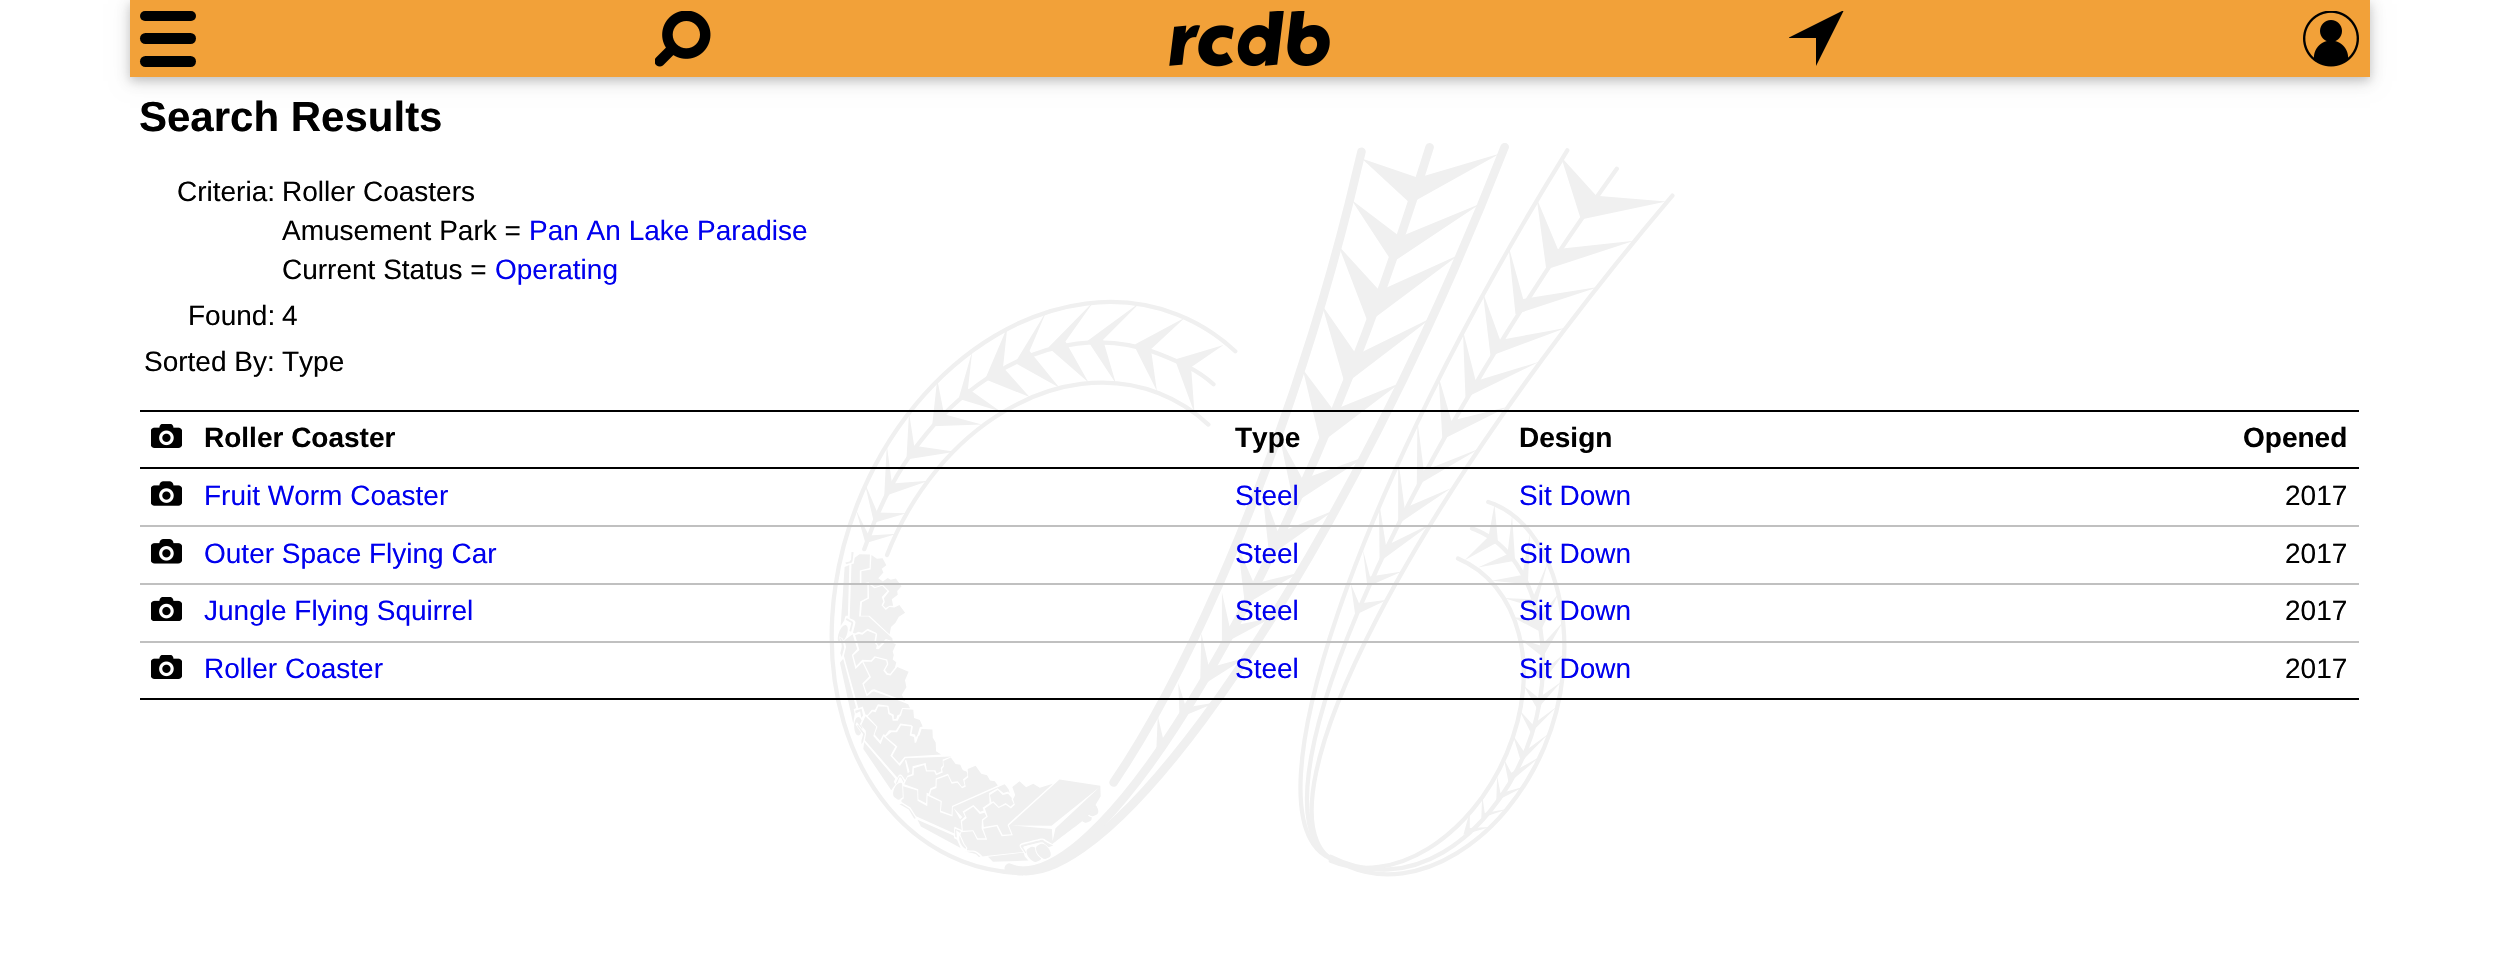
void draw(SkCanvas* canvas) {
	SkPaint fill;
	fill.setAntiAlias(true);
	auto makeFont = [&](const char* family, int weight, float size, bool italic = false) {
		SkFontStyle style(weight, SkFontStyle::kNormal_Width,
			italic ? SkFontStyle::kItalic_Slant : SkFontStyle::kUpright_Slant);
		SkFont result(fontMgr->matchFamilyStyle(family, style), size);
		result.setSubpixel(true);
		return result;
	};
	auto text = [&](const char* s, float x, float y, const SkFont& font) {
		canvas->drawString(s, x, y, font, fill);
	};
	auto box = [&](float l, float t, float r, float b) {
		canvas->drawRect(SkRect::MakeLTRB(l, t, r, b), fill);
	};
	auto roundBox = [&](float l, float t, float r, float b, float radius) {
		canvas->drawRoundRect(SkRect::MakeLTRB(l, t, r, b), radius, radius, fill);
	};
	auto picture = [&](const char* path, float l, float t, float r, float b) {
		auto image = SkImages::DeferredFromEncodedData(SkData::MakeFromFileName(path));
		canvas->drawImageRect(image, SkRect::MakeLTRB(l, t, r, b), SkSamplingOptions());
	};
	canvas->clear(0xFFFFFFFF);
	canvas->save();
	canvas->clipPath(SkPathBuilder(SkPathFillType::kEvenOdd).moveTo(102, 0).lineTo(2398, 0).lineTo(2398, 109).lineTo(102, 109).close().moveTo(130, 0).lineTo(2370, 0).lineTo(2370, 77).lineTo(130, 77).close().detach(), true);
	fill.setColor(0x1F000000);
	fill.setMaskFilter(SkMaskFilter::MakeBlur(kNormal_SkBlurStyle, 9));
	canvas->drawRect(SkRect::MakeLTRB(130, 4, 2370, 81), fill);
	fill.setMaskFilter(nullptr);
	canvas->restore();
	canvas->save();
	canvas->clipPath(SkPathBuilder(SkPathFillType::kEvenOdd).moveTo(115, 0).lineTo(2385, 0).lineTo(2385, 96).lineTo(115, 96).close().moveTo(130, 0).lineTo(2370, 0).lineTo(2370, 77).lineTo(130, 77).close().detach(), true);
	fill.setColor(0x29000000);
	fill.setMaskFilter(SkMaskFilter::MakeBlur(kNormal_SkBlurStyle, 4.5f));
	canvas->drawRect(SkRect::MakeLTRB(130, 4, 2370, 81), fill);
	fill.setMaskFilter(nullptr);
	canvas->restore();
	fill.setColor(0xCCEF8A08);
	box(130, 0, 2370, 77);
	fill.setColor(0xFF000000);
	roundBox(140, 11, 196, 21, 5);
	roundBox(140, 33, 196, 44, 5.5f);
	roundBox(140, 56, 196, 67, 5.5f);
	picture("image0.png", 655, 11, 711, 67);
	picture("image1.png", 1169, 11, 1330, 67);
	canvas->save();
	canvas->clipRect(SkRect::MakeLTRB(1789, 11, 1845, 67));
	canvas->drawPath(SkPathBuilder().moveTo(1844, 10).lineTo(1816, 66).lineTo(1816, 38).lineTo(1788, 38).close().detach(), fill);
	canvas->restore();
	picture("image2.png", 2303, 11, 2359, 67);
	picture("image7.png", 829, 143, 1675, 877);
	box(140, 410, 2359, 412);
	box(140, 467, 2359, 469);
	picture("image3.png", 151, 424, 182, 448);
	fill.setColor(0xFFC0C0C0);
	box(140, 525, 2359, 527);
	picture("image4.png", 151, 481, 182, 506);
	box(140, 583, 2359, 585);
	picture("image5.png", 151, 539, 182, 564);
	box(140, 641, 2359, 643);
	picture("image6.png", 151, 597, 182, 621);
	fill.setColor(0xFF000000);
	box(140, 698, 2359, 700);
	picture("image3.png", 151, 655, 182, 679);
	auto font1 = makeFont("Liberation Sans", 700, 42);
	text("Search Results", 139, 131, font1);
	auto font2 = makeFont("Liberation Sans", 400, 28);
	text("Criteria:", 177, 201, font2);
	text("Roller Coasters", 282, 201, font2);
	text("Amusement Park =", 282, 240, font2);
	fill.setColor(0xFF0000EE);
	text("Pan An Lake Paradise", 529, 240, font2);
	fill.setColor(0xFF000000);
	text("Current Status =", 282, 279, font2);
	fill.setColor(0xFF0000EE);
	text("Operating", 495, 279, font2);
	fill.setColor(0xFF000000);
	text("Found:", 188, 325, font2);
	text("4", 282, 325, font2);
	text("Sorted By:", 144, 371, font2);
	text("Type", 282, 371, font2);
	auto font3 = makeFont("Liberation Sans", 700, 28);
	text("Roller Coaster", 204, 447, font3);
	text("Type", 1235, 447, font3);
	text("Design", 1519, 447, font3);
	text("Opened", 2243, 447, font3);
	fill.setColor(0xFF0000EE);
	text("Fruit Worm Coaster", 204, 505, font2);
	text("Steel", 1235, 505, font2);
	text("Sit Down", 1519, 505, font2);
	fill.setColor(0xFF000000);
	text("2017", 2285, 505, font2);
	fill.setColor(0xFF0000EE);
	text("Outer Space Flying Car", 204, 563, font2);
	text("Steel", 1235, 563, font2);
	text("Sit Down", 1519, 563, font2);
	fill.setColor(0xFF000000);
	text("2017", 2285, 563, font2);
	fill.setColor(0xFF0000EE);
	text("Jungle Flying Squirrel", 204, 620, font2);
	text("Steel", 1235, 620, font2);
	text("Sit Down", 1519, 620, font2);
	fill.setColor(0xFF000000);
	text("2017", 2285, 620, font2);
	fill.setColor(0xFF0000EE);
	text("Roller Coaster", 204, 678, font2);
	text("Steel", 1235, 678, font2);
	text("Sit Down", 1519, 678, font2);
	fill.setColor(0xFF000000);
	text("2017", 2285, 678, font2);
}
